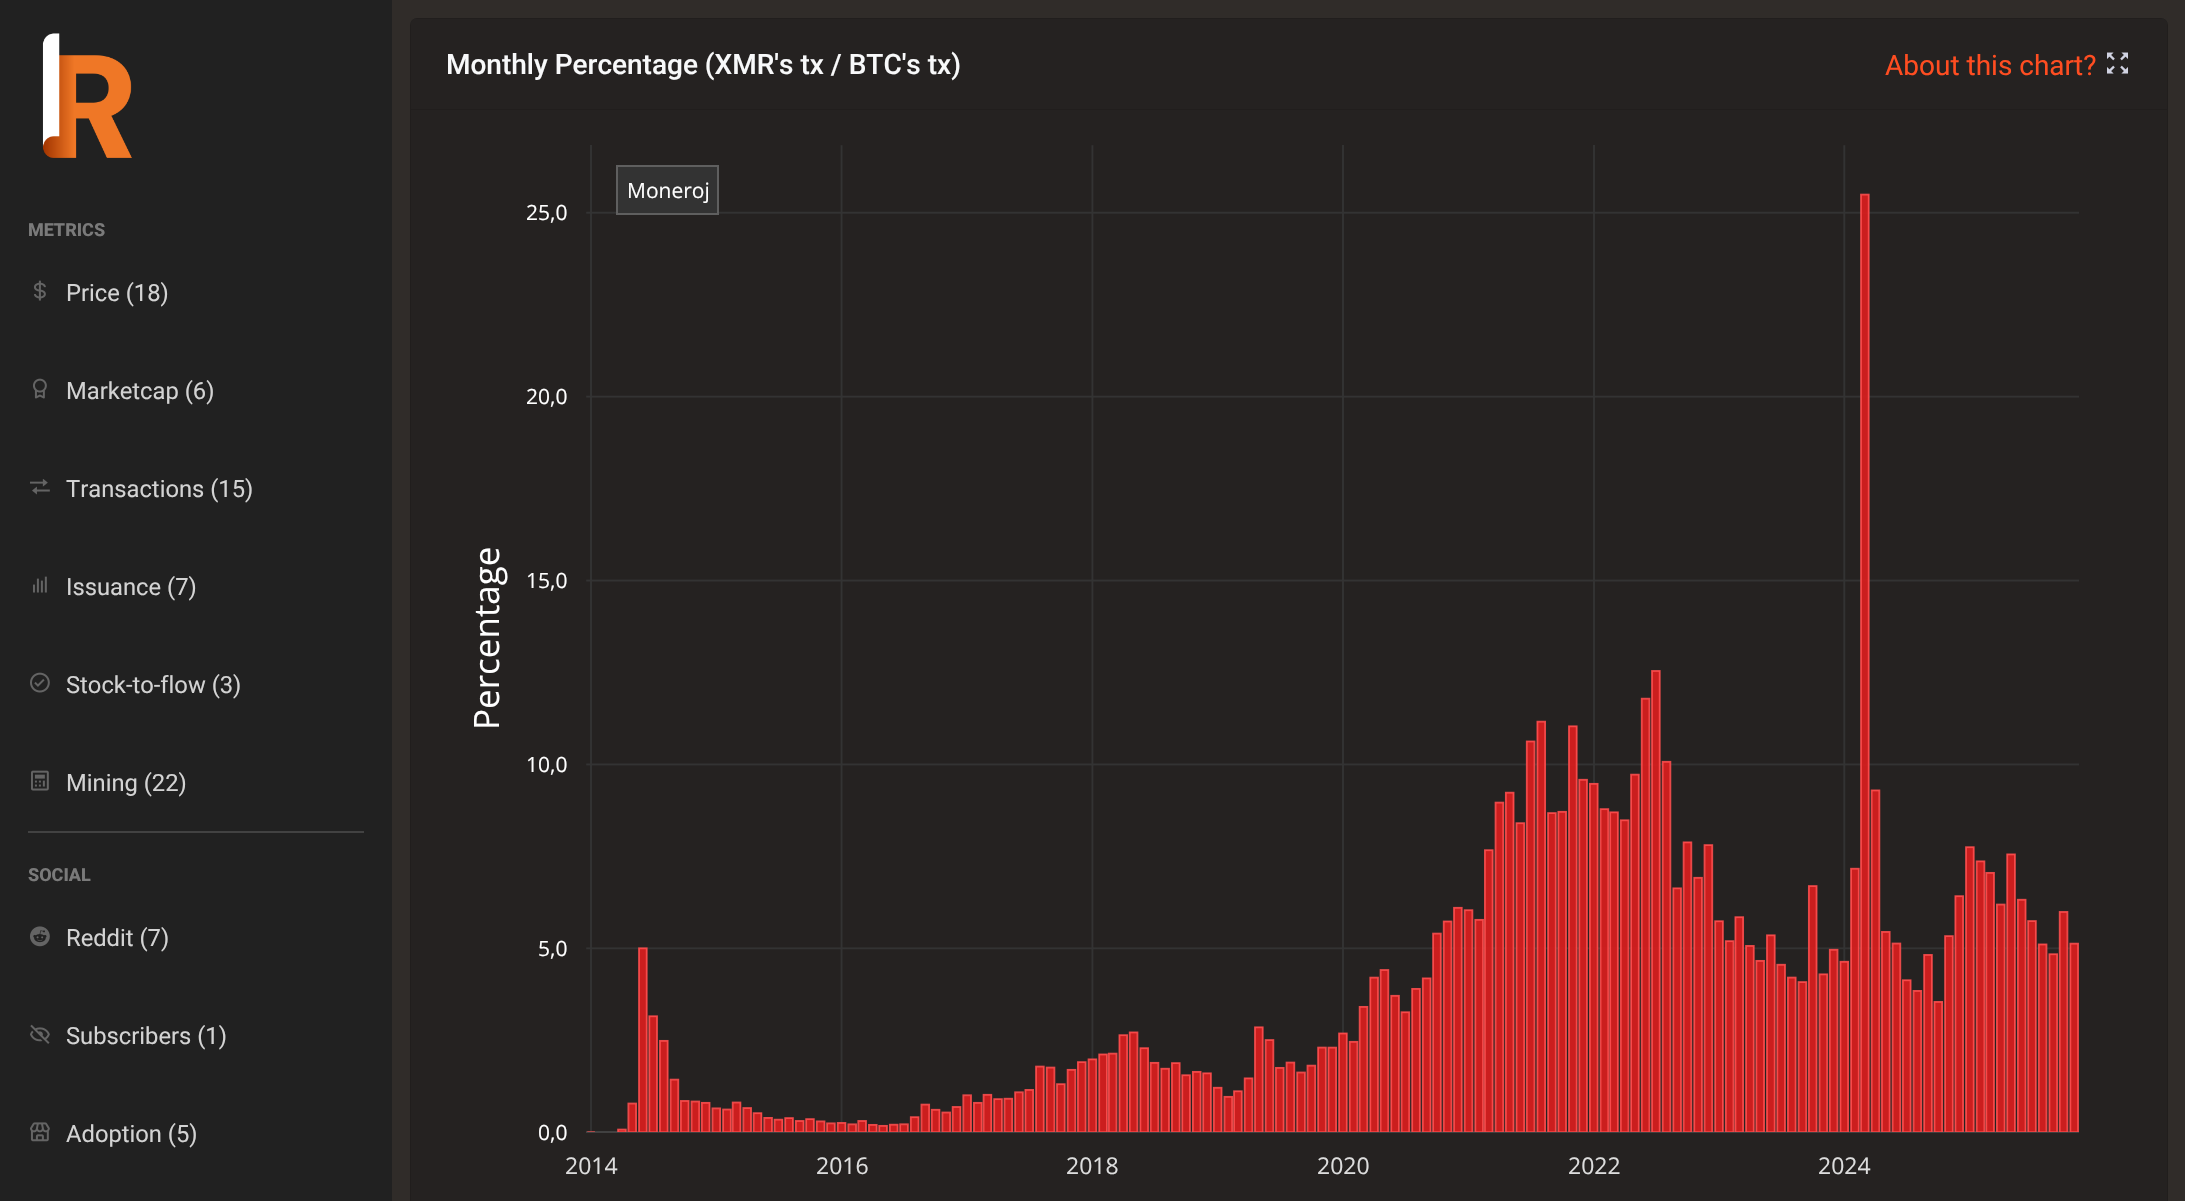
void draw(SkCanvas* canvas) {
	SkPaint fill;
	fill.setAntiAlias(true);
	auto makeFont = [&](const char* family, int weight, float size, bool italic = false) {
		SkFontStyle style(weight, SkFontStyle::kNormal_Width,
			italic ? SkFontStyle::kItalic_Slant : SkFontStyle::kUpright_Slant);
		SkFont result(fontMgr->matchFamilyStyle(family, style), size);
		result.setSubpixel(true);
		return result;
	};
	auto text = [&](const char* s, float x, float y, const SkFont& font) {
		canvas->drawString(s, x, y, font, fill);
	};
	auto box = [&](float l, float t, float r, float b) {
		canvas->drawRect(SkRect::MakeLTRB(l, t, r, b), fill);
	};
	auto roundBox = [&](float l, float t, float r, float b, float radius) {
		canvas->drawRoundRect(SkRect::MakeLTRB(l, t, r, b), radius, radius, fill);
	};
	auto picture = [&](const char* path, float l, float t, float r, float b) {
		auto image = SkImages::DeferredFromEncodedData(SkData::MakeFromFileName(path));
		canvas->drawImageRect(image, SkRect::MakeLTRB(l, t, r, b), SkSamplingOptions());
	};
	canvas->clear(0xFF212121);
	picture("image0.png", 42, 33, 132, 158);
	picture("image1.png", 34, 280, 46, 301);
	picture("image2.png", 33, 378, 47, 399);
	picture("image3.png", 30, 479, 50, 495);
	picture("image4.png", 33, 576, 47, 593);
	picture("image5.png", 30, 672, 50, 693);
	picture("image6.png", 31, 770, 49, 791);
	fill.setColor(0xFF424242);
	box(28, 831, 364, 833);
	picture("image7.png", 30, 926, 50, 947);
	picture("image8.png", 30, 1024, 50, 1044);
	picture("image9.png", 30, 1122, 50, 1142);
	fill.setColor(0xFF302C29);
	box(392, 0, 2185, 1201);
	fill.setColor(0xFF252221);
	roundBox(410, 18, 2168, 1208, 7);
	fill.setStyle(SkPaint::kStroke_Style);
	fill.setStrokeWidth(2);
	fill.setColor(0x1F000000);
	canvas->drawRoundRect(SkRect::MakeLTRB(411, 19, 2167, 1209), 6, 6, fill);
	fill.setStyle(SkPaint::kFill_Style);
	fill.setColor(0xFF252221);
	canvas->drawPath(SkPathBuilder().moveTo(416, 19).lineTo(2162, 19).cubicTo(2165, 19, 2167, 21, 2167, 24).lineTo(2167, 110).lineTo(411, 110).lineTo(411, 24).cubicTo(411, 21, 413, 19, 416, 19).close().detach(), fill);
	fill.setColor(0x1F000000);
	box(411, 109, 2167, 110);
	picture("image10.png", 2107, 52, 2128, 74);
	fill.setColor(0xFF252221);
	box(411, 110, 2167, 1201);
	picture("image11.png", 586, 145, 2079, 1133);
	fill.setColor(0xFF333333);
	box(618, 167, 717, 212);
	fill.setStyle(SkPaint::kStroke_Style);
	fill.setColor(0xFF5F5F5F);
	canvas->drawRect(SkRect::MakeLTRB(617, 166, 718, 214), fill);
	auto font1 = makeFont("Roboto", 800, 18);
	fill.setStyle(SkPaint::kFill_Style);
	fill.setColor(0xFF7A7A7A);
	text("METRICS", 28, 236, font1);
	auto font2 = makeFont("Roboto", 400, 23.75f);
	fill.setColor(0xFFD3D3D3);
	text("Price (18)", 66, 301, font2);
	text("Marketcap (6)", 66, 399, font2);
	text("Transactions (15)", 66, 497, font2);
	text("Issuance (7)", 66, 595, font2);
	text("Stock-to-flow (3)", 66, 693, font2);
	text("Mining (22)", 66, 791, font2);
	fill.setColor(0xFF7A7A7A);
	text("SOCIAL", 28, 881, font1);
	fill.setColor(0xFFD3D3D3);
	text("Reddit (7)", 66, 946, font2);
	text("Subscribers (1)", 66, 1044, font2);
	text("Adoption (5)", 66, 1142, font2);
	auto font3 = makeFont("Roboto", 500, 28);
	fill.setColor(0xFFF8F9FA);
	text("Monthly Percentage (XMR's tx / BTC's tx)", 446, 74, font3);
	auto font4 = makeFont("Roboto", 400, 28);
	fill.setColor(0xFFFF4D21);
	text("About this chart?", 1885, 75, font4);
	auto font5 = makeFont("Open Sans", 400, 21);
	fill.setColor(0xFFFFFFFF);
	text("Moneroj", 627, 198, font5);
	auto font6 = makeFont("Open Sans", 400, 35);
	canvas->save();
	canvas->rotate(-90, 499, 730);
	text("Percentage", 499, 730, font6);
	canvas->restore();
	text("25,0", 526, 220, font5);
	text("20,0", 526, 404, font5);
	text("15,0", 526, 588, font5);
	text("10,0", 526, 772, font5);
	text("5,0", 538, 956, font5);
	text("0,0", 538, 1140, font5);
	auto font7 = makeFont("Open Sans", 400, 23);
	fill.setColor(0xFFDDDDDD);
	text("2014", 565, 1174, font7);
	text("2016", 816, 1174, font7);
	text("2018", 1066, 1174, font7);
	text("2020", 1317, 1174, font7);
	text("2022", 1568, 1174, font7);
	text("2024", 1818, 1174, font7);
}
